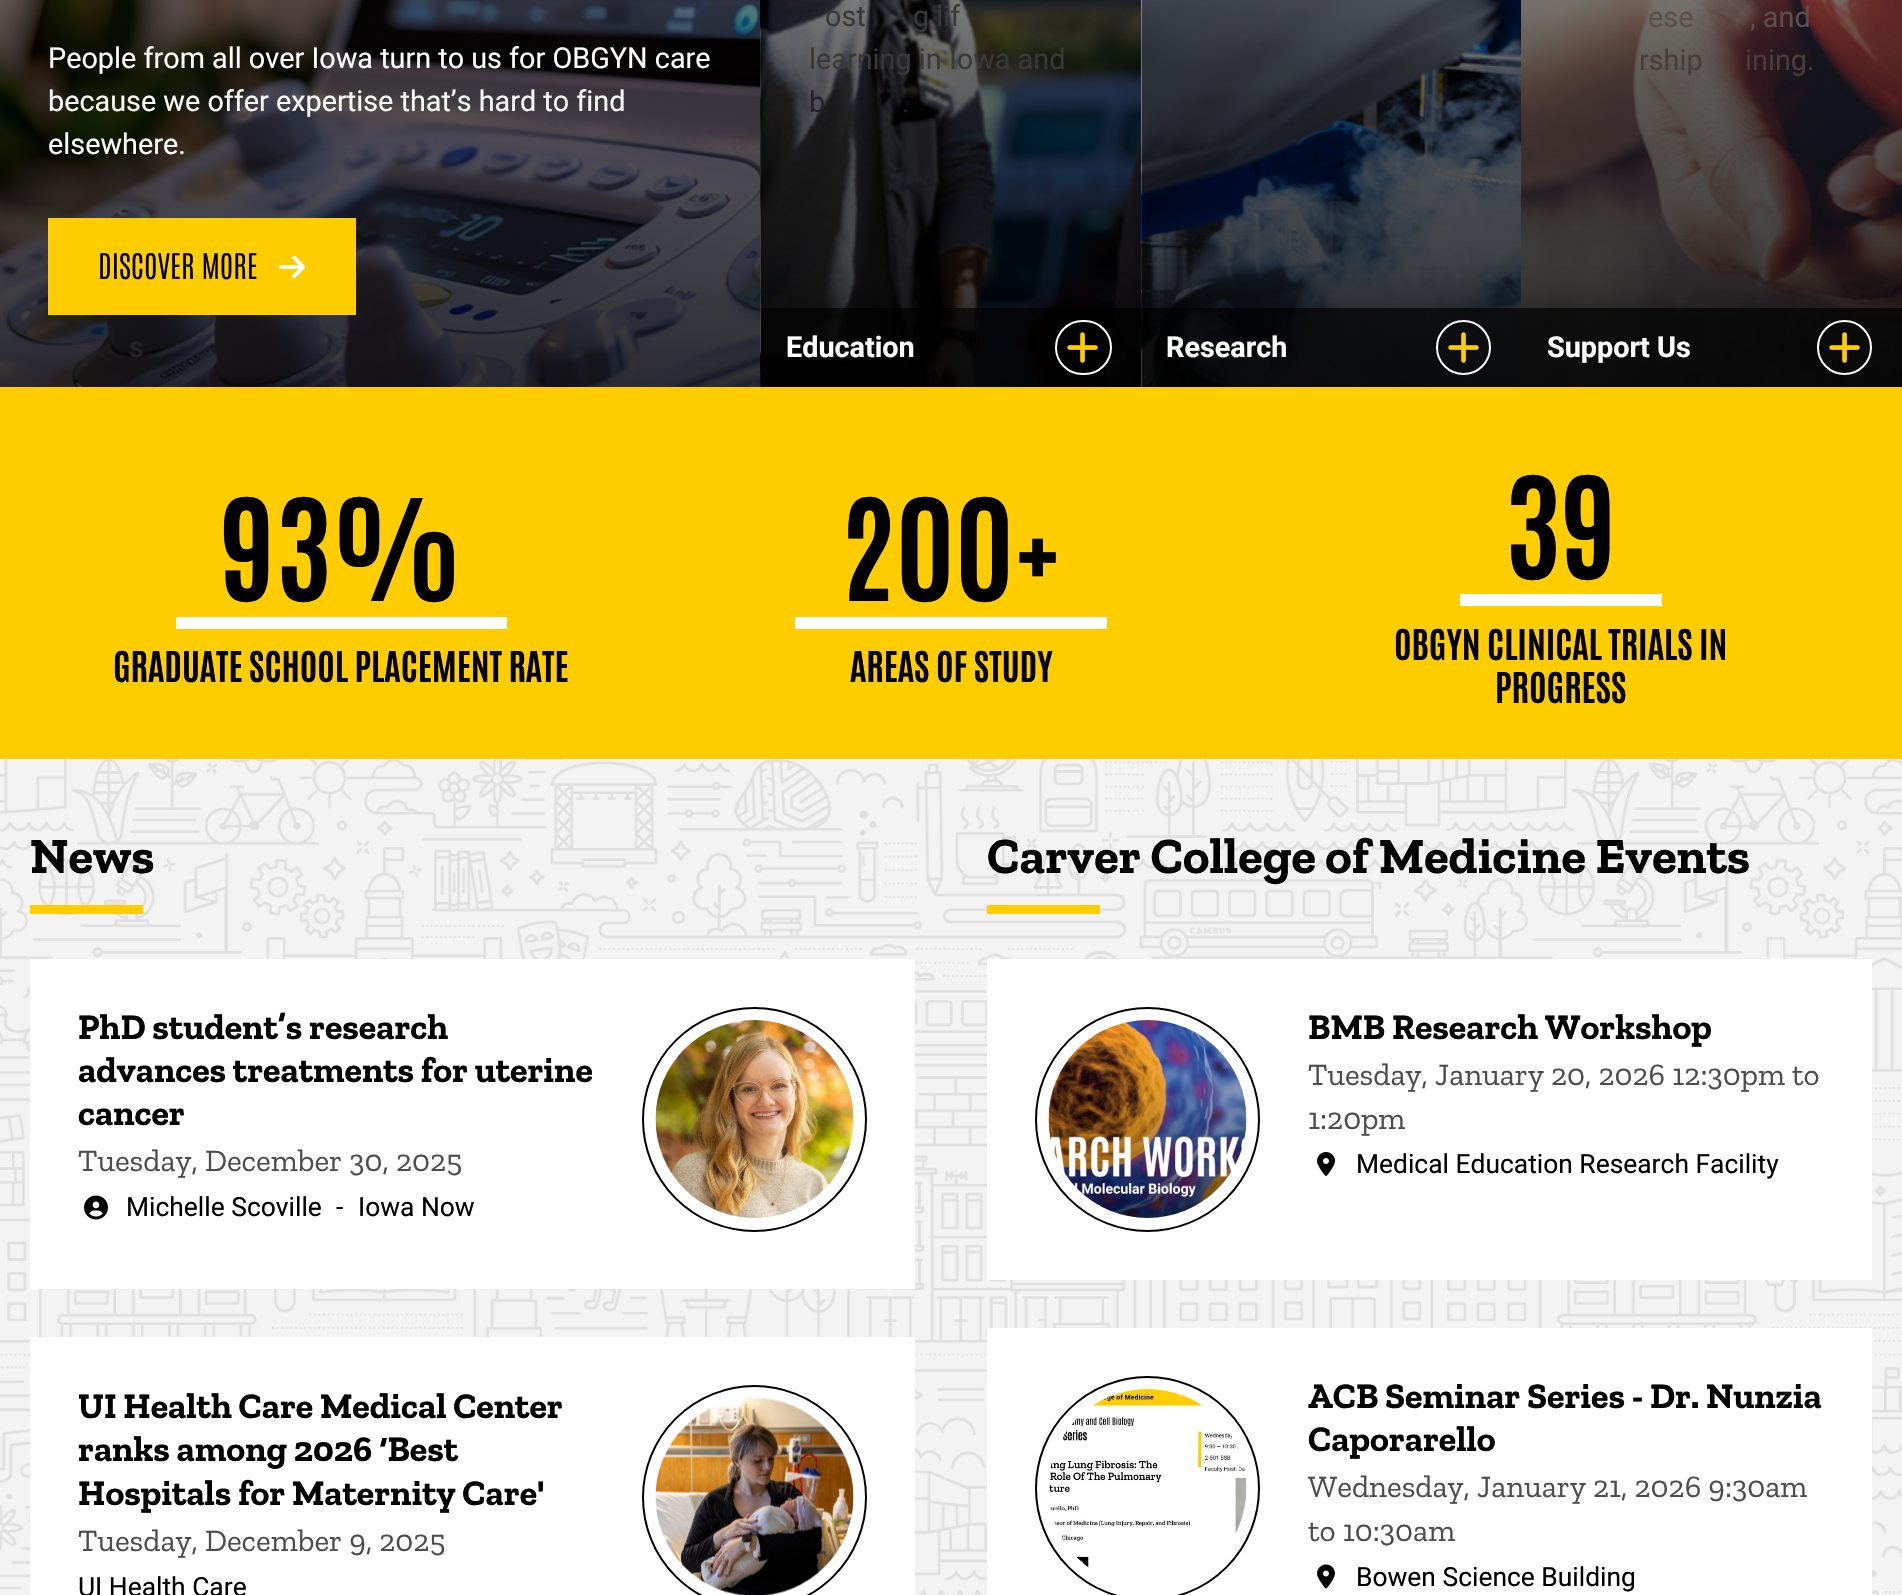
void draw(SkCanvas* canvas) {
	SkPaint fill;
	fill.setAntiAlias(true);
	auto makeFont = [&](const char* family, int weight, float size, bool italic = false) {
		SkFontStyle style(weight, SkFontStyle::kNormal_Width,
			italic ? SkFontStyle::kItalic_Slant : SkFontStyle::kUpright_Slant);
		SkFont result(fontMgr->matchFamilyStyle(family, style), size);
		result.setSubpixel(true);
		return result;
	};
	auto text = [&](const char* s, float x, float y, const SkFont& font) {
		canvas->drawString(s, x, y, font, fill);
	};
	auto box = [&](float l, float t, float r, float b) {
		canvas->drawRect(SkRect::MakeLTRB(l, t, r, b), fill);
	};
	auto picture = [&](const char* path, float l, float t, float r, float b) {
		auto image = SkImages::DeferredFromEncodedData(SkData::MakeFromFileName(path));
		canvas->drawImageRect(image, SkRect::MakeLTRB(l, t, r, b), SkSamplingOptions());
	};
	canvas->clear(0xFFFFFFFF);
	picture("image0.png", 0, 0, 761, 387);
	fill.setColor(0xFFFFCD00);
	box(48, 218, 356, 315);
	picture("image1.png", 279, 255, 306, 279);
	picture("image2.png", 760, 0, 1141, 387);
	{
		const SkColor colors[] = {0xCC000000, 0x99000000, 0x00000000};
		const float stops[] = {0, 0.4f, 1};
		const SkPoint ends[] = {{951, 387}, {951, -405}};
		fill.setShader(SkGradientShader::MakeLinear(ends, colors, stops, 3, SkTileMode::kClamp));
		fill.setAlpha(255);
	}
	box(761, 0, 1141, 387);
	picture("image4.png", 1141, 0, 1521, 387);
	fill.setShader(nullptr);
	fill.setColor(0xFFFFCD00);
	box(0, 387, 1902, 759);
	canvas->save();
	canvas->clipRect(SkRect::MakeLTRB(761, 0, 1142, 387));
	canvas->clipPath(SkPathBuilder(SkPathFillType::kEvenOdd).moveTo(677, 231).lineTo(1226, 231).lineTo(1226, 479).lineTo(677, 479).close().moveTo(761, 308).lineTo(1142, 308).lineTo(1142, 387).lineTo(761, 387).close().detach(), true);
	fill.setColor(0x4D000000);
	fill.setMaskFilter(SkMaskFilter::MakeBlur(kNormal_SkBlurStyle, 22.5f));
	canvas->drawRect(SkRect::MakeLTRB(746, 300, 1157, 410), fill);
	fill.setMaskFilter(nullptr);
	canvas->restore();
	fill.setColor(0xBF000000);
	box(761, 308, 1142, 387);
	fill.setStyle(SkPaint::kStroke_Style);
	fill.setStrokeWidth(2);
	fill.setColor(0xFFFFFFFF);
	canvas->drawRoundRect(SkRect::MakeLTRB(1056, 321, 1111, 374), 26.5f, 26.5f, fill);
	picture("image3.png", 1067, 332, 1098, 363);
	picture("image6.png", 1521, 0, 1902, 387);
	canvas->save();
	canvas->clipRect(SkRect::MakeLTRB(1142, 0, 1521, 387));
	canvas->clipRect(SkRect::MakeLTRB(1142, 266, 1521, 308));
	fill.setStyle(SkPaint::kFill_Style);
	fill.setColor(0x4D000000);
	fill.setMaskFilter(SkMaskFilter::MakeBlur(kNormal_SkBlurStyle, 22.5f));
	canvas->drawRect(SkRect::MakeLTRB(1127, 300, 1536, 410), fill);
	fill.setMaskFilter(nullptr);
	canvas->restore();
	fill.setColor(0xBF000000);
	box(1142, 308, 1521, 387);
	fill.setStyle(SkPaint::kStroke_Style);
	fill.setColor(0xFFFFFFFF);
	canvas->drawCircle(1463.5f, 347.5f, 26.5f, fill);
	picture("image5.png", 1448, 332, 1479, 363);
	canvas->save();
	canvas->clipRect(SkRect::MakeLTRB(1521, 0, 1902, 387));
	canvas->clipRect(SkRect::MakeLTRB(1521, 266, 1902, 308));
	fill.setStyle(SkPaint::kFill_Style);
	fill.setColor(0x4D000000);
	fill.setMaskFilter(SkMaskFilter::MakeBlur(kNormal_SkBlurStyle, 22.5f));
	canvas->drawRect(SkRect::MakeLTRB(1506, 300, 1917, 410), fill);
	fill.setMaskFilter(nullptr);
	canvas->restore();
	fill.setColor(0xBF000000);
	box(1521, 308, 1902, 387);
	fill.setStyle(SkPaint::kStroke_Style);
	fill.setColor(0xFFFFFFFF);
	canvas->drawCircle(1844.5f, 347.5f, 26.5f, fill);
	picture("image7.png", 1829, 332, 1860, 363);
	fill.setStyle(SkPaint::kFill_Style);
	box(176, 617, 507, 629);
	box(795, 617, 1107, 629);
	box(1460, 594, 1662, 606);
	fill.setColor(0xFFF3F3F3);
	box(0, 759, 1902, 1595);
	picture("image8.png", 0, 759, 1902, 1595);
	fill.setColor(0xFFFFCD00);
	box(30, 905, 143, 914);
	fill.setColor(0xFFFFFFFF);
	box(30, 959, 915, 1289);
	picture("image9.png", 84, 1195, 108, 1220);
	fill.setStyle(SkPaint::kStroke_Style);
	fill.setColor(0xFF000000);
	canvas->drawCircle(754.5f, 1119.5f, 111.5f, fill);
	picture("image10.png", 655, 1020, 854, 1218);
	fill.setStyle(SkPaint::kFill_Style);
	fill.setColor(0xFFFFFFFF);
	box(30, 1337, 915, 1595);
	fill.setStyle(SkPaint::kStroke_Style);
	fill.setColor(0xFF000000);
	canvas->drawCircle(754.5f, 1497.5f, 111.5f, fill);
	picture("image11.png", 655, 1397, 854, 1595);
	fill.setStyle(SkPaint::kFill_Style);
	fill.setColor(0xFFFFCD00);
	box(987, 905, 1100, 914);
	fill.setColor(0xFFFFFFFF);
	box(987, 959, 1872, 1280);
	fill.setStyle(SkPaint::kStroke_Style);
	fill.setColor(0xFF000000);
	canvas->drawCircle(1147.5f, 1119.5f, 111.5f, fill);
	picture("image12.png", 1048, 1020, 1247, 1218);
	picture("image13.png", 1317, 1152, 1335, 1176);
	fill.setStyle(SkPaint::kFill_Style);
	fill.setColor(0xFFFFFFFF);
	box(987, 1328, 1872, 1595);
	fill.setStyle(SkPaint::kStroke_Style);
	fill.setColor(0xFF000000);
	canvas->drawCircle(1147.5f, 1488.5f, 111.5f, fill);
	picture("image14.png", 1048, 1389, 1247, 1568);
	picture("image15.png", 1317, 1564, 1335, 1589);
	auto font1 = makeFont("Roboto", 400, 28.8f);
	fill.setStyle(SkPaint::kFill_Style);
	fill.setColor(0xFFFFFFFF);
	text("People from all over Iowa turn to us for OBGYN care", 48, 68, font1);
	text("because we offer expertise that’s hard to find", 48, 111, font1);
	text("elsewhere.", 48, 154, font1);
	auto font2 = makeFont("Antonio", 300, 30);
	fill.setColor(0xFF000000);
	text("DISCOVER MORE", 98, 279, font2);
	auto font3 = makeFont("Roboto", 700, 28.8f);
	fill.setColor(0xFF232228);
	text("s", 129, 357, font3);
	fill.setColor(0xFF393937);
	text("ost", 825, 26, font1);
	text("g lif", 913, 26, font1);
	text("learning in Iowa and", 809, 69, font1);
	fill.setColor(0xFF232228);
	text("b", 809, 112, font1);
	text(".", 902, 112, font1);
	fill.setColor(0xFFFFFFFF);
	text("Education", 786, 357, font3);
	text("Research", 1166, 357, font3);
	fill.setColor(0xFF5D4D4B);
	text("ese", 1648, 27, font1);
	text(", and", 1750, 27, font1);
	fill.setColor(0xFF4A3C3B);
	text("rship", 1639, 70, font1);
	text("ining.", 1745, 70, font1);
	fill.setColor(0xFFFFFFFF);
	text("Support Us", 1547, 357, font3);
	auto font4 = makeFont("Antonio", 700, 120);
	fill.setColor(0xFF000000);
	text("93%", 220, 601, font4);
	auto font5 = makeFont("Antonio", 700, 36);
	text("GRADUATE SCHOOL PLACEMENT RATE", 113, 682, font5);
	text("200+", 840, 601, font4);
	text("AREAS OF STUDY", 850, 682, font5);
	text("39", 1505, 579, font4);
	text("OBGYN CLINICAL TRIALS IN", 1394, 660, font5);
	text("PROGRESS", 1495, 703, font5);
	auto font6 = makeFont("Zilla Slab", 700, 50.6f);
	text("News", 30, 873, font6);
	auto font7 = makeFont("Zilla Slab", 700, 36);
	text("PhD student’s research", 78, 1039, font7);
	text("advances treatments for uterine", 78, 1082, font7);
	text("cancer", 78, 1125, font7);
	auto font8 = makeFont("Zilla Slab", 400, 31.25f);
	fill.setColor(0xFF4D4D4D);
	text("Tuesday, December 30, 2025", 78, 1171, font8);
	auto font9 = makeFont("Roboto", 400, 26.4f);
	fill.setColor(0xFF000000);
	text("Michelle Scoville", 126, 1216, font9);
	text("-", 336, 1216, font9);
	text("Iowa Now", 358, 1216, font9);
	text("UI Health Care Medical Center", 78, 1418, font7);
	text("ranks among 2026 ‘Best", 78, 1461, font7);
	text("Hospitals for Maternity Care'", 78, 1505, font7);
	fill.setColor(0xFF4D4D4D);
	text("Tuesday, December 9, 2025", 78, 1551, font8);
	fill.setColor(0xFF000000);
	text("UI Health Care", 78, 1596, font9);
	text("Carver College of Medicine Events", 987, 873, font6);
	text("BMB Research Workshop", 1308, 1039, font7);
	fill.setColor(0xFF4D4D4D);
	text("Tuesday, January 20, 2026 12:30pm to", 1308, 1085, font8);
	text("1:20pm", 1308, 1129, font8);
	fill.setColor(0xFF000000);
	text("Medical Education Research Facility", 1356, 1173, font9);
	text("ACB Seminar Series - Dr. Nunzia", 1308, 1408, font7);
	text("Caporarello", 1308, 1451, font7);
	fill.setColor(0xFF4D4D4D);
	text("Wednesday, January 21, 2026 9:30am", 1308, 1497, font8);
	text("to 10:30am", 1308, 1541, font8);
	fill.setColor(0xFF000000);
	text("Bowen Science Building", 1356, 1586, font9);
}
